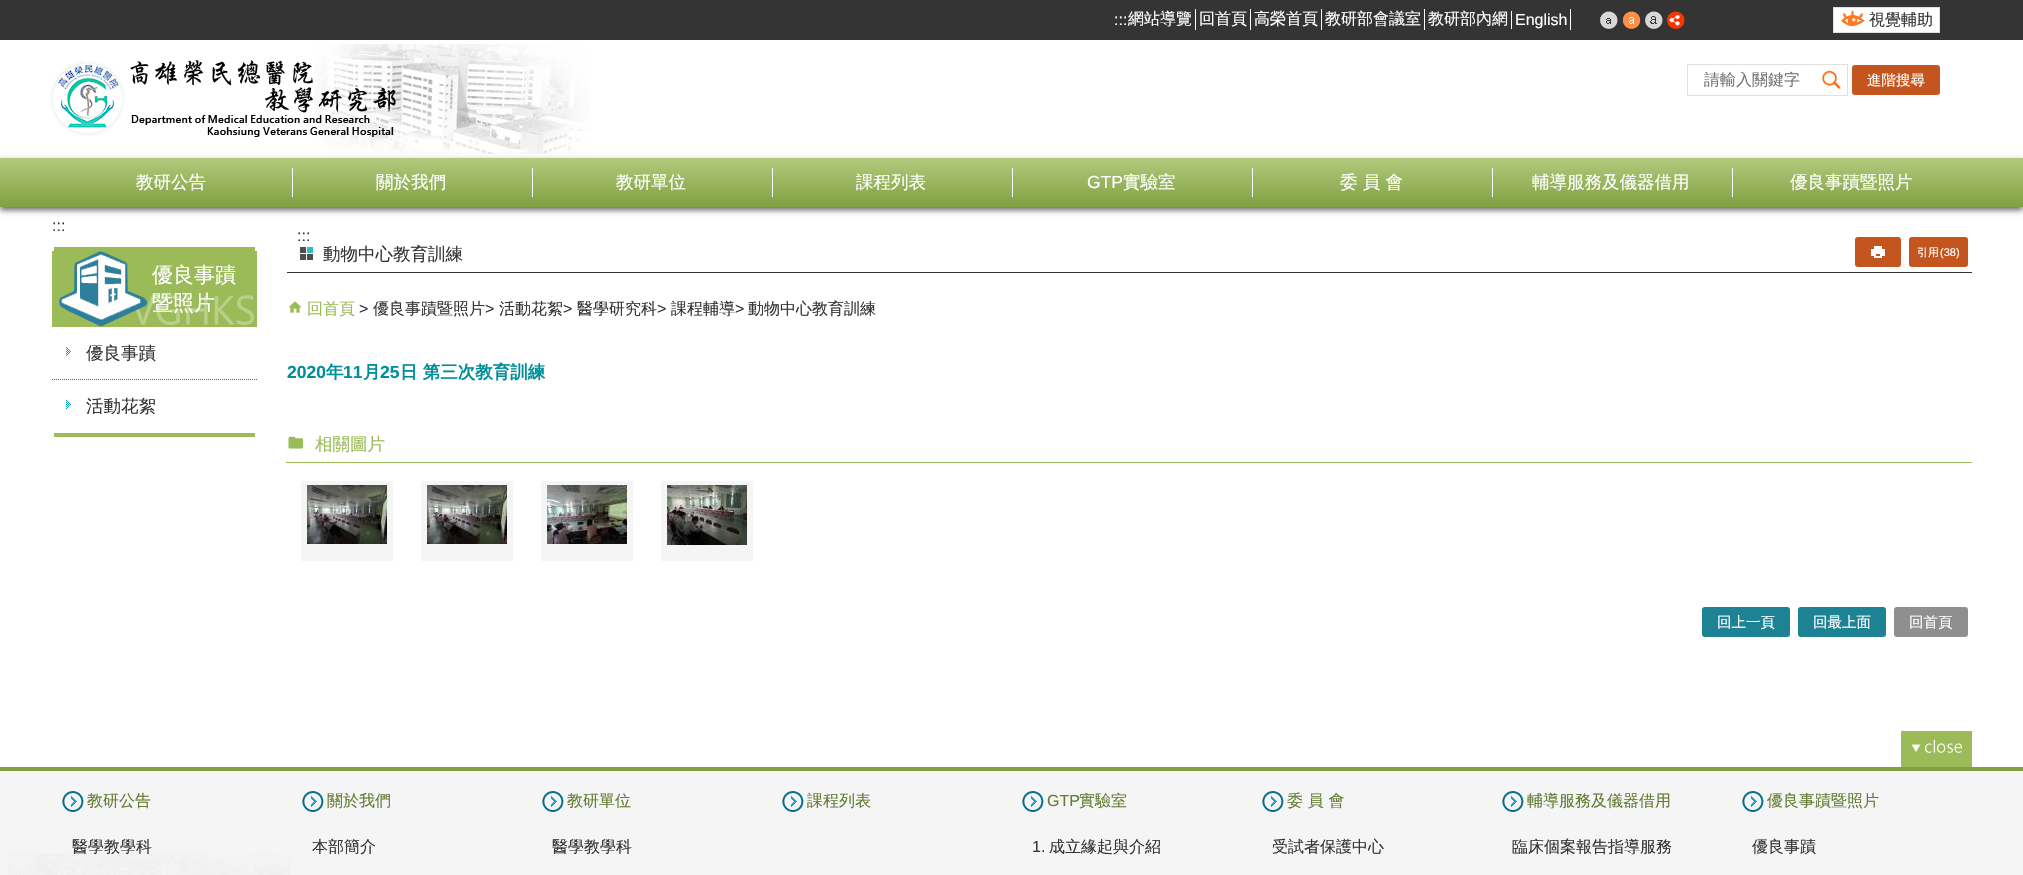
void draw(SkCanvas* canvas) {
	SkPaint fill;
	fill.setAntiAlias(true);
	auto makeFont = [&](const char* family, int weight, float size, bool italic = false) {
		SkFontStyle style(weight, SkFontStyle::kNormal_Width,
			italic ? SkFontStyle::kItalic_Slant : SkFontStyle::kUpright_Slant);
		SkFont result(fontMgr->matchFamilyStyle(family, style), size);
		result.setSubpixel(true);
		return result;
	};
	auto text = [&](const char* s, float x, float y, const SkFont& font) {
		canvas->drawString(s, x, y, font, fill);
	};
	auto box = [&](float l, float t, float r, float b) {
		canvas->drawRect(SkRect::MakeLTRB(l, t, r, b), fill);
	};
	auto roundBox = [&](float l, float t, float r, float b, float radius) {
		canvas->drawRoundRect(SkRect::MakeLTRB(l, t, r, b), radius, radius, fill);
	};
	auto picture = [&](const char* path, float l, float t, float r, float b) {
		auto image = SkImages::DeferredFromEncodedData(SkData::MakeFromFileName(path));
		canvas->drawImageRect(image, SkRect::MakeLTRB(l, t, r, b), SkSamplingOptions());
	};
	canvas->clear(0xFFFFFFFF);
	fill.setColor(0xFF343434);
	box(0, 0, 2023, 40);
	fill.setColor(0xFFFFFFFF);
	box(1195, 9, 1196, 30);
	box(1250, 9, 1251, 30);
	box(1321, 9, 1322, 30);
	box(1424, 9, 1425, 30);
	box(1511, 11, 1512, 29);
	box(1570, 9, 1571, 30);
	picture("image0.png", 1600, 11, 1618, 29);
	picture("image1.png", 1623, 11, 1641, 29);
	picture("image2.png", 1645, 11, 1663, 29);
	picture("image3.png", 1667, 11, 1685, 29);
	canvas->drawRect(SkRect::MakeLTRB(1833.5f, 7.5f, 1939.5f, 32.5f), fill);
	fill.setStyle(SkPaint::kStroke_Style);
	fill.setStrokeWidth(1);
	fill.setColor(0xFFE0E0E0);
	canvas->drawRect(SkRect::MakeLTRB(1833.5f, 7.5f, 1939.5f, 32.5f), fill);
	picture("image4.png", 1841, 10, 1865, 26);
	picture("image5.png", 314, 44, 591, 154);
	picture("image6.png", 50, 60, 396, 137);
	canvas->drawRect(SkRect::MakeLTRB(1687.5f, 64.5f, 1847.5f, 95.5f), fill);
	picture("image7.png", 1822, 70, 1841, 90);
	fill.setStyle(SkPaint::kFill_Style);
	fill.setColor(0xFFC4551F);
	roundBox(1852, 65, 1940, 95, 3);
	fill.setColor(0xFF646464);
	fill.setMaskFilter(SkMaskFilter::MakeBlur(kNormal_SkBlurStyle, 3));
	canvas->drawRect(SkRect::MakeLTRB(0, 161, 2023, 210), fill);
	fill.setMaskFilter(nullptr);
	{
		const SkColor colors[] = {0xFFB1CA7D, 0xFF81A041};
		const float stops[] = {0, 1};
		const SkPoint ends[] = {{1012, 158}, {1012, 207}};
		fill.setShader(SkGradientShader::MakeLinear(ends, colors, stops, 2, SkTileMode::kClamp));
		fill.setAlpha(255);
	}
	box(0, 158, 2023, 207);
	fill.setShader(nullptr);
	fill.setColor(0xFFFFFFFF);
	box(292, 168, 293, 197);
	box(532, 168, 533, 197);
	box(772, 168, 773, 197);
	box(1012, 168, 1013, 197);
	box(1252, 168, 1253, 197);
	box(1492, 168, 1493, 197);
	box(1732, 168, 1733, 197);
	fill.setColor(0xFF9BBB59);
	box(54, 247, 255, 251);
	box(54, 433, 255, 437);
	box(52, 251, 257, 327);
	picture("image9.png", 136, 295, 255, 325);
	picture("image8.png", 59, 251, 148, 327);
	picture("image10.png", 66, 347, 71, 356);
	fill.setStyle(SkPaint::kStroke_Style);
	fill.setColor(0xFF646464);
	fill.setPathEffect(SkDashPathEffect::Make({{1, 1}}, 0));
	canvas->drawPath(SkPathBuilder().moveTo(52, 379.5f).lineTo(257, 379.5f).detach(), fill);
	fill.setPathEffect(nullptr);
	picture("image10.png", 66, 400, 71, 409);
	fill.setStyle(SkPaint::kFill_Style);
	fill.setColor(0xFF343434);
	box(287, 272, 1972, 273);
	picture("image11.png", 300, 247, 313, 260);
	fill.setColor(0xFFC4551F);
	roundBox(1855, 237, 1901, 267, 3);
	picture("image12.png", 1871, 246, 1885, 258);
	roundBox(1909, 237, 1968, 267, 3);
	picture("image13.png", 288, 301, 302, 313);
	fill.setColor(0xFF9BBB59);
	box(286, 462, 1972, 463);
	picture("image14.png", 288, 436, 304, 449);
	fill.setColor(0xFFF5F5F5);
	box(301, 481, 393, 561);
	picture("image15.png", 307, 485, 387, 544);
	box(421, 481, 513, 561);
	picture("image16.png", 427, 485, 507, 544);
	box(541, 481, 633, 561);
	picture("image17.png", 547, 485, 627, 544);
	box(661, 481, 753, 561);
	picture("image18.png", 667, 485, 747, 545);
	fill.setColor(0xFF1D8293);
	roundBox(1702, 607, 1790, 637, 3);
	roundBox(1798, 607, 1886, 637, 3);
	fill.setColor(0xFF8F8F8F);
	roundBox(1894, 607, 1968, 637, 3);
	fill.setColor(0xFFF5F5F5);
	box(0, 771, 2023, 875);
	fill.setColor(0xFF81A041);
	box(0, 767, 2023, 771);
	fill.setColor(0xFF9BBB59);
	box(1901, 731, 1972, 767);
	picture("image19.png", 1911, 739, 1962, 753);
	picture("image20.png", 62, 791, 84, 812);
	picture("image20.png", 302, 791, 324, 812);
	picture("image20.png", 542, 791, 564, 812);
	picture("image20.png", 782, 791, 804, 812);
	picture("image20.png", 1022, 791, 1044, 812);
	picture("image20.png", 1262, 791, 1284, 812);
	picture("image20.png", 1502, 791, 1524, 812);
	picture("image20.png", 1742, 791, 1764, 812);
	picture("image21.png", 7, 853, 291, 875);
	auto font1 = makeFont("Liberation Sans", 400, 16);
	fill.setColor(0xFFFFFFFF);
	text(":::", 1114, 25, font1);
	auto font2 = makeFont("WenQuanYi Zen Hei", 500, 16);
	text("網站導覽", 1128, 24, font2);
	text("回首頁", 1199, 24, font2);
	text("高榮首頁", 1254, 24, font2);
	text("教研部會議室", 1325, 24, font2);
	text("教研部內網", 1428, 24, font2);
	text("English", 1515, 25, font1);
	fill.setColor(0xFF343434);
	text("視覺輔助", 1869, 25, font2);
	fill.setColor(0xFF757575);
	text("請輸入關鍵字", 1704, 85, font2);
	auto font3 = makeFont("WenQuanYi Zen Hei", 500, 14.5f);
	fill.setColor(0xFFFFFFFF);
	text("進階搜尋", 1867, 85, font3);
	auto font4 = makeFont("WenQuanYi Zen Hei", 500, 17.5f);
	text("教研公告", 136, 188, font4);
	text("關於我們", 376, 188, font4);
	text("教研單位", 616, 188, font4);
	text("課程列表", 856, 188, font4);
	auto font5 = makeFont("Liberation Sans", 400, 17.5f);
	text("GTP", 1087, 188, font5);
	text("實驗室", 1123, 188, font4);
	text("委 員 會", 1340, 188, font4);
	text("輔導服務及儀器借用", 1532, 188, font4);
	text("優良事蹟暨照片", 1790, 188, font4);
	fill.setColor(0xFF343434);
	text(":::", 52, 231, font1);
	auto font6 = makeFont("WenQuanYi Zen Hei", 500, 21);
	fill.setColor(0xFFFFFFFF);
	text("優良事蹟", 152, 282, font6);
	text("暨照片", 152, 310, font6);
	fill.setColor(0xFF343434);
	text("優良事蹟", 86, 359, font4);
	text("活動花絮", 86, 412, font4);
	text(":::", 297, 241, font1);
	text("動物中心教育訓練", 323, 260, font4);
	auto font7 = makeFont("WenQuanYi Zen Hei", 500, 11);
	fill.setColor(0xFFFFFFFF);
	text("引用", 1917, 256, font7);
	auto font8 = makeFont("Liberation Sans", 400, 11);
	text("(38)", 1940, 256, font8);
	fill.setColor(0xFF9BBB59);
	text("回首頁", 307, 314, font2);
	fill.setColor(0xFF343434);
	text(">", 359, 314, font1);
	text("優良事蹟暨照片", 373, 314, font2);
	text(">", 485, 314, font1);
	text("活動花絮", 499, 314, font2);
	text(">", 563, 314, font1);
	text("醫學研究科", 577, 314, font2);
	text(">", 657, 314, font1);
	text("課程輔導", 671, 314, font2);
	text(">", 735, 314, font1);
	text("動物中心教育訓練", 748, 314, font2);
	auto font9 = makeFont("Liberation Sans", 700, 17.5f);
	fill.setColor(0xFF008E9B);
	text("2020", 287, 378, font9);
	auto font10 = makeFont("WenQuanYi Zen Hei", 700, 17.5f);
	text("年", 326, 378, font10);
	text("11", 343, 378, font9);
	text("月", 363, 378, font10);
	text("25", 380, 378, font9);
	text("日 第三次教育訓練", 400, 378, font10);
	fill.setColor(0xFF9BBB59);
	text("相關圖片", 315, 450, font4);
	fill.setColor(0xFFFFFFFF);
	text("回上一頁", 1717, 627, font3);
	text("回最上面", 1813, 627, font3);
	text("回首頁", 1909, 627, font3);
	fill.setColor(0xFF647B33);
	text("教研公告", 87, 806, font2);
	fill.setColor(0xFF343434);
	text("醫學教學科", 72, 852, font2);
	fill.setColor(0xFF647B33);
	text("關於我們", 327, 806, font2);
	fill.setColor(0xFF343434);
	text("本部簡介", 312, 852, font2);
	fill.setColor(0xFF647B33);
	text("教研單位", 567, 806, font2);
	fill.setColor(0xFF343434);
	text("醫學教學科", 552, 852, font2);
	fill.setColor(0xFF647B33);
	text("課程列表", 807, 806, font2);
	text("GTP", 1047, 806, font1);
	text("實驗室", 1079, 806, font2);
	fill.setColor(0xFF343434);
	text("1.", 1032, 852, font1);
	text("成立緣起與介紹", 1049, 852, font2);
	fill.setColor(0xFF647B33);
	text("委 員 會", 1287, 806, font2);
	fill.setColor(0xFF343434);
	text("受試者保護中心", 1272, 852, font2);
	fill.setColor(0xFF647B33);
	text("輔導服務及儀器借用", 1527, 806, font2);
	fill.setColor(0xFF343434);
	text("臨床個案報告指導服務", 1512, 852, font2);
	fill.setColor(0xFF647B33);
	text("優良事蹟暨照片", 1767, 806, font2);
	fill.setColor(0xFF343434);
	text("優良事蹟", 1752, 852, font2);
}
